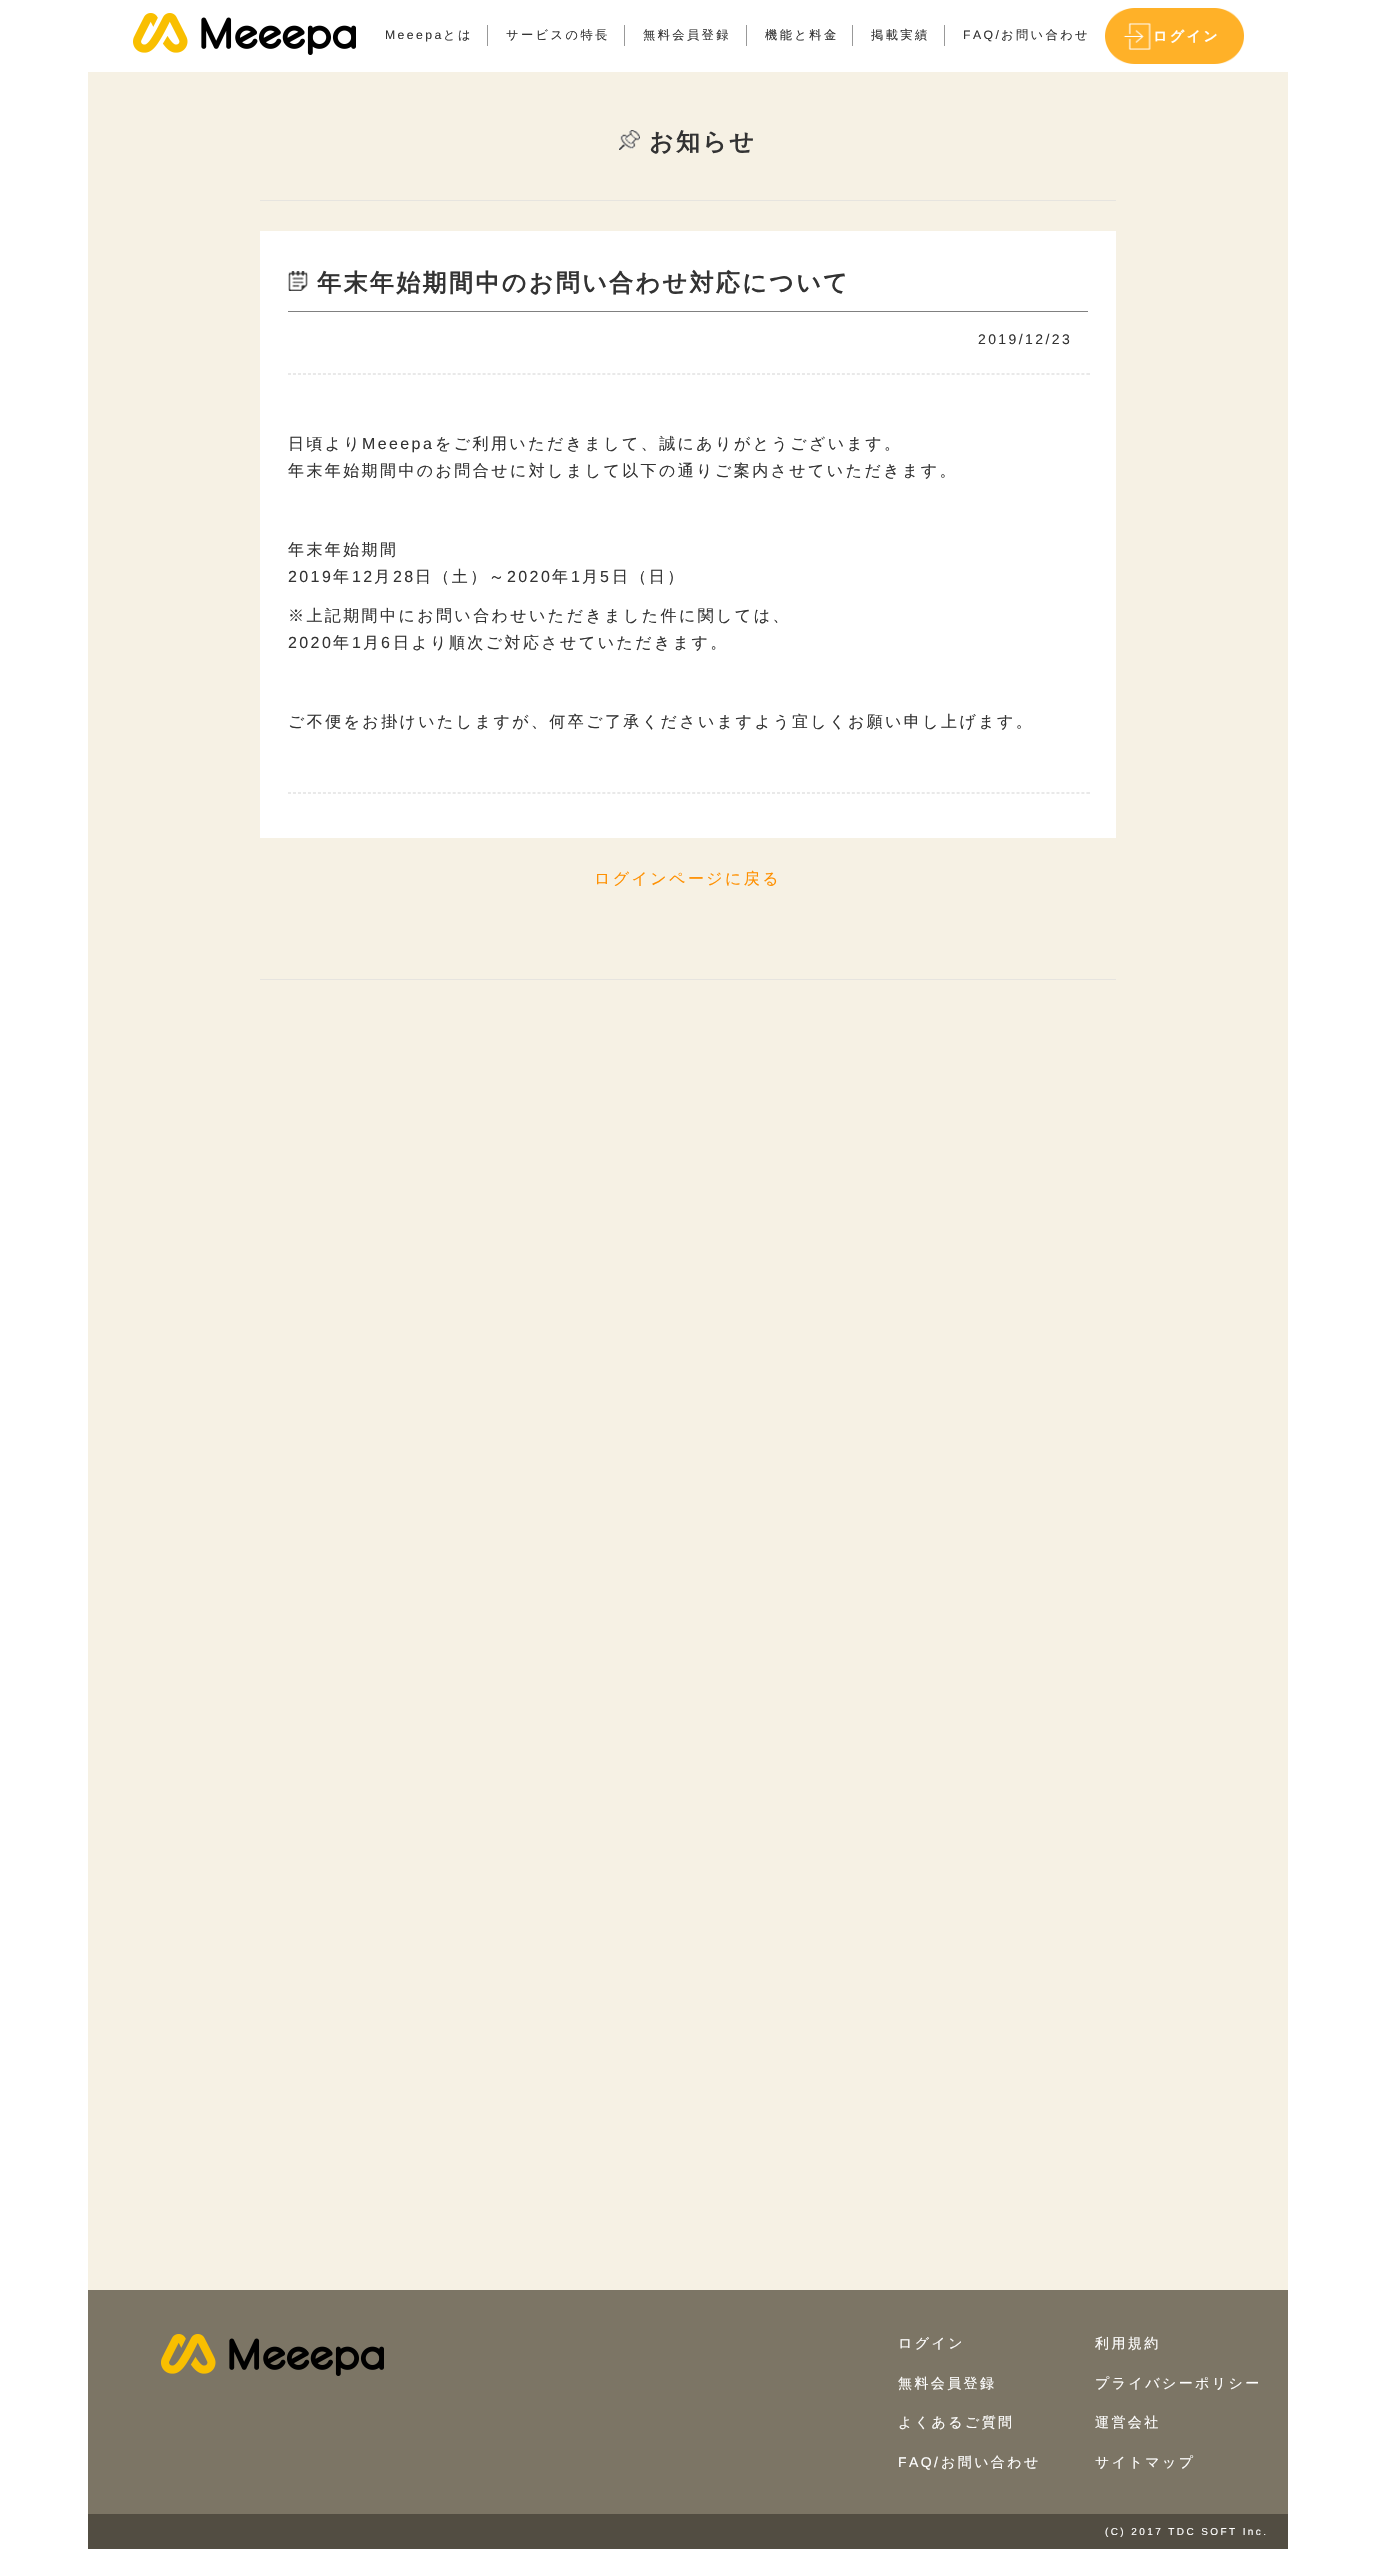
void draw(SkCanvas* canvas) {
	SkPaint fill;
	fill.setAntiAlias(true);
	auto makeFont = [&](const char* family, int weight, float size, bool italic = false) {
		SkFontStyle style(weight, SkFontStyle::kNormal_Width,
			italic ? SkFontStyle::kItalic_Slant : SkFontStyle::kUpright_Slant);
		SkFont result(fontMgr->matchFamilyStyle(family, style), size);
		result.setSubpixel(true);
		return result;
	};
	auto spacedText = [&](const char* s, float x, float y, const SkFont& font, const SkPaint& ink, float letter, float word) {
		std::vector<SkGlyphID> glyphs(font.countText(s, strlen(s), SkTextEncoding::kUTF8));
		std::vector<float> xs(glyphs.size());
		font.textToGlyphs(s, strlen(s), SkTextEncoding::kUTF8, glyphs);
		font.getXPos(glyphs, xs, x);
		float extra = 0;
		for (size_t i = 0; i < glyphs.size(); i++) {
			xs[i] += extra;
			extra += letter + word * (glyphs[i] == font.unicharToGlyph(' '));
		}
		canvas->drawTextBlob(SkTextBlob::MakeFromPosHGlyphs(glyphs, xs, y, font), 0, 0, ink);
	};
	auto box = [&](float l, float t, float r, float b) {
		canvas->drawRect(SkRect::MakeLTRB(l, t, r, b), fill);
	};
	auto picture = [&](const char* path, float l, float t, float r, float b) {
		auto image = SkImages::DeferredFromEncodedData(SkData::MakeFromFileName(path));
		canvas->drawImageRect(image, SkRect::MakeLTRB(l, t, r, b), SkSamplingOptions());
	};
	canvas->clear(0xFFFFFFFF);
	picture("image0.png", 133, 13, 356, 55);
	fill.setColor(0xFF999999);
	box(487, 25, 488, 46);
	box(624, 25, 625, 46);
	box(746, 25, 747, 46);
	box(852, 25, 853, 46);
	box(944, 25, 945, 46);
	picture("image1.png", 1105, 8, 1244, 64);
	fill.setColor(0xFFF6F1E4);
	box(88, 72, 1288, 2290);
	picture("image2.png", 619, 130, 640, 150);
	fill.setColor(0xFFE6E4DF);
	box(260, 200, 1116, 201);
	fill.setColor(0xFFFFFFFF);
	box(260, 231, 1116, 838);
	fill.setColor(0xFF808080);
	box(288, 311, 1088, 312);
	picture("image3.png", 288, 271, 308, 291);
	fill.setStyle(SkPaint::kStroke_Style);
	fill.setStrokeWidth(1);
	fill.setColor(0xFFE9E9E9);
	fill.setPathEffect(SkDashPathEffect::Make({{3, 1.99f}}, 0));
	canvas->drawPath(SkPathBuilder().moveTo(288, 373.5f).lineTo(1090, 373.5f).detach(), fill);
	fill.setPathEffect(nullptr);
	fill.setStyle(SkPaint::kFill_Style);
	box(1089, 373, 1090, 375);
	fill.setStyle(SkPaint::kStroke_Style);
	fill.setPathEffect(SkDashPathEffect::Make({{3, 1.99f}}, 0));
	canvas->drawPath(SkPathBuilder().moveTo(288, 374.5f).lineTo(1090, 374.5f).detach(), fill);
	fill.setPathEffect(nullptr);
	fill.setPathEffect(SkDashPathEffect::Make({{3, 1.99f}}, 0));
	canvas->drawPath(SkPathBuilder().moveTo(288, 792.5f).lineTo(1090, 792.5f).detach(), fill);
	fill.setPathEffect(nullptr);
	fill.setStyle(SkPaint::kFill_Style);
	box(1089, 792, 1090, 794);
	fill.setStyle(SkPaint::kStroke_Style);
	fill.setPathEffect(SkDashPathEffect::Make({{3, 1.99f}}, 0));
	canvas->drawPath(SkPathBuilder().moveTo(288, 793.5f).lineTo(1090, 793.5f).detach(), fill);
	fill.setPathEffect(nullptr);
	fill.setStyle(SkPaint::kFill_Style);
	fill.setColor(0xFFE6E4DF);
	box(260, 979, 1116, 980);
	fill.setColor(0xFF7C7565);
	box(88, 2290, 1288, 2514);
	picture("image4.png", 161, 2334, 384, 2376);
	fill.setColor(0xFF524D42);
	box(88, 2514, 1288, 2549);
	auto font1 = makeFont("Liberation Sans", 400, 12.25f);
	fill.setColor(0xFF333333);
	spacedText("Meeepa", 385, 39, font1, fill, 2.4f, 0);
	auto font2 = makeFont("WenQuanYi Zen Hei", 500, 12.25f);
	spacedText("とは", 443, 39, font2, fill, 2.4f, 0);
	spacedText("サービスの特長", 506, 39, font2, fill, 2.4f, 0);
	spacedText("無料会員登録", 643, 39, font2, fill, 2.4f, 0);
	spacedText("機能と料金", 765, 39, font2, fill, 2.4f, 0);
	spacedText("掲載実績", 871, 39, font2, fill, 2.4f, 0);
	spacedText("FAQ/", 963, 39, font1, fill, 2.4f, 0);
	spacedText("お問い合わせ", 1001, 39, font2, fill, 2.4f, 0);
	auto font3 = makeFont("WenQuanYi Zen Hei", 700, 14);
	fill.setColor(0xFFFFFFFF);
	spacedText("ログイン", 1153, 41, font3, fill, 2.4f, 0);
	auto font4 = makeFont("WenQuanYi Zen Hei", 700, 24);
	fill.setColor(0xFF333333);
	spacedText("お知らせ", 649, 150, font4, fill, 2.4f, 0);
	spacedText("年末年始期間中のお問い合わせ対応について", 317, 291, font4, fill, 2.4f, 0);
	auto font5 = makeFont("Liberation Sans", 400, 14);
	spacedText("2019/12/23", 978, 344, font5, fill, 2.4f, 0);
	auto font6 = makeFont("WenQuanYi Zen Hei", 500, 16);
	spacedText("日頃より", 288, 449, font6, fill, 2.4f, 0);
	auto font7 = makeFont("Liberation Sans", 400, 16);
	spacedText("Meeepa", 362, 449, font7, fill, 2.4f, 0);
	spacedText("をご利用いただきまして、誠にありがとうございます。", 435, 449, font6, fill, 2.4f, 0);
	spacedText("年末年始期間中のお問合せに対しまして以下の通りご案内させていただきます。", 288, 476, font6, fill, 2.4f, 0);
	spacedText("年末年始期間", 288, 555, font6, fill, 2.4f, 0);
	spacedText("2019", 288, 582, font7, fill, 2.4f, 0);
	spacedText("年", 333, 582, font6, fill, 2.4f, 0);
	spacedText("12", 352, 582, font7, fill, 2.4f, 0);
	spacedText("月", 374, 582, font6, fill, 2.4f, 0);
	spacedText("28", 393, 582, font7, fill, 2.4f, 0);
	spacedText("日（土）～", 415, 582, font6, fill, 2.4f, 0);
	spacedText("2020", 507, 582, font7, fill, 2.4f, 0);
	spacedText("年", 552, 582, font6, fill, 2.4f, 0);
	spacedText("1", 571, 582, font7, fill, 2.4f, 0);
	spacedText("月", 582, 582, font6, fill, 2.4f, 0);
	spacedText("5", 600, 582, font7, fill, 2.4f, 0);
	spacedText("日（日）", 612, 582, font6, fill, 2.4f, 0);
	spacedText("※上記期間中にお問い合わせいただきました件に関しては、", 288, 621, font6, fill, 2.4f, 0);
	spacedText("2020", 288, 648, font7, fill, 2.4f, 0);
	spacedText("年", 333, 648, font6, fill, 2.4f, 0);
	spacedText("1", 352, 648, font7, fill, 2.4f, 0);
	spacedText("月", 363, 648, font6, fill, 2.4f, 0);
	spacedText("6", 381, 648, font7, fill, 2.4f, 0);
	spacedText("日より順次ご対応させていただきます。", 393, 648, font6, fill, 2.4f, 0);
	spacedText("ご不便をお掛けいたしますが、何卒ご了承くださいますよう宜しくお願い申し上げます。", 288, 727, font6, fill, 2.4f, 0);
	fill.setColor(0xFFFF9000);
	spacedText("ログインページに戻る", 594, 884, font6, fill, 2.4f, 0);
	auto font8 = makeFont("WenQuanYi Zen Hei", 500, 14);
	fill.setColor(0xFFFFFFFF);
	spacedText("ログイン", 898, 2348, font8, fill, 2.4f, 0);
	spacedText("無料会員登録", 898, 2388, font8, fill, 2.4f, 0);
	spacedText("よくあるご質問", 898, 2427, font8, fill, 2.4f, 0);
	spacedText("FAQ/", 898, 2467, font5, fill, 2.4f, 0);
	spacedText("お問い合わせ", 941, 2467, font8, fill, 2.4f, 0);
	spacedText("利用規約", 1095, 2348, font8, fill, 2.4f, 0);
	spacedText("プライバシーポリシー", 1095, 2388, font8, fill, 2.4f, 0);
	spacedText("運営会社", 1095, 2427, font8, fill, 2.4f, 0);
	spacedText("サイトマップ", 1095, 2467, font8, fill, 2.4f, 0);
	auto font9 = makeFont("Liberation Sans", 400, 10);
	spacedText("(C) 2017 TDC SOFT Inc.", 1105, 2535, font9, fill, 2.4f, 0);
}
